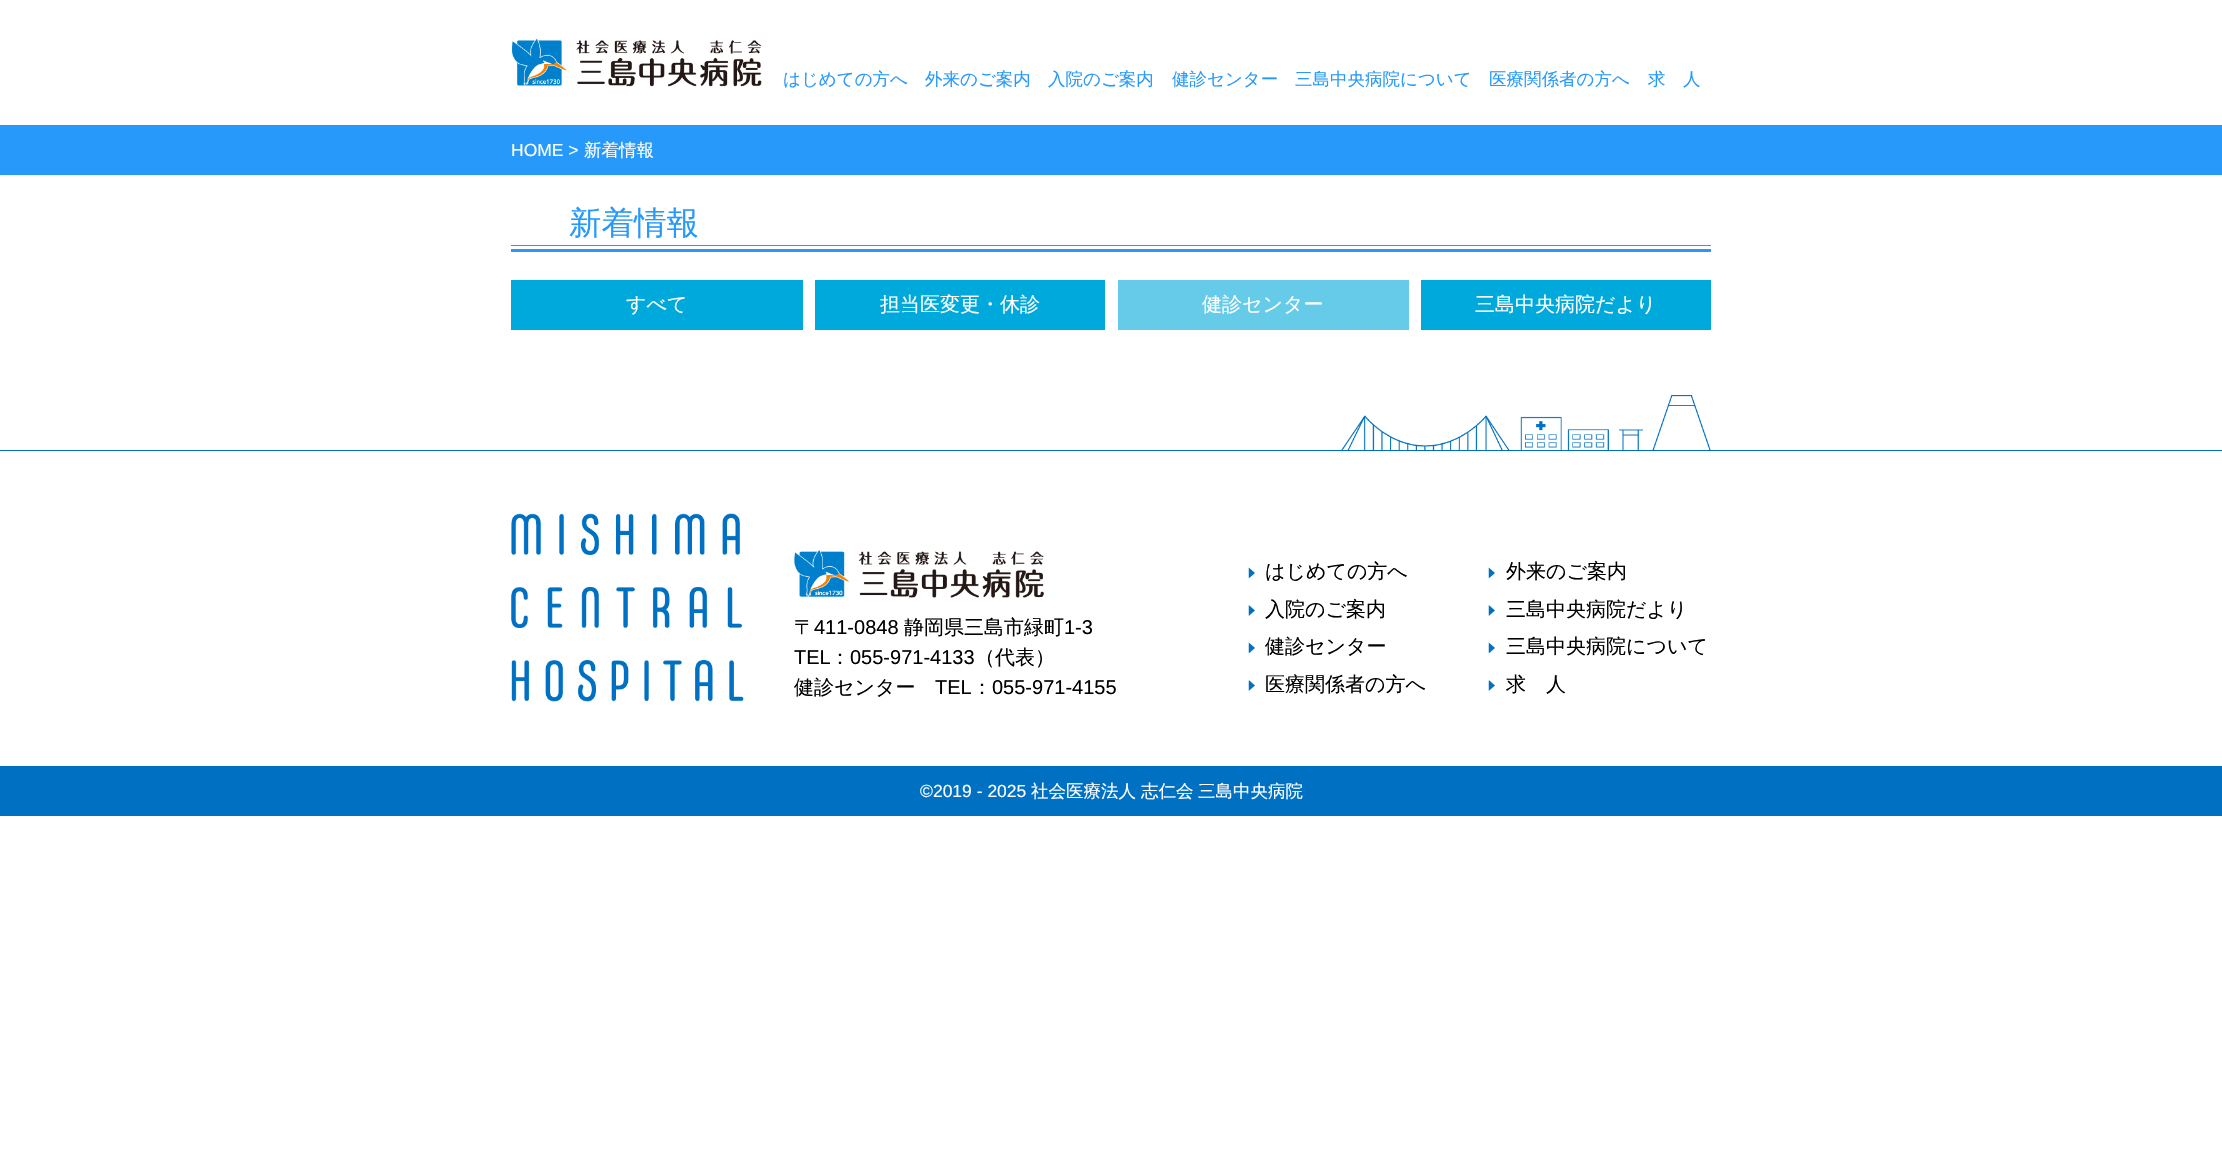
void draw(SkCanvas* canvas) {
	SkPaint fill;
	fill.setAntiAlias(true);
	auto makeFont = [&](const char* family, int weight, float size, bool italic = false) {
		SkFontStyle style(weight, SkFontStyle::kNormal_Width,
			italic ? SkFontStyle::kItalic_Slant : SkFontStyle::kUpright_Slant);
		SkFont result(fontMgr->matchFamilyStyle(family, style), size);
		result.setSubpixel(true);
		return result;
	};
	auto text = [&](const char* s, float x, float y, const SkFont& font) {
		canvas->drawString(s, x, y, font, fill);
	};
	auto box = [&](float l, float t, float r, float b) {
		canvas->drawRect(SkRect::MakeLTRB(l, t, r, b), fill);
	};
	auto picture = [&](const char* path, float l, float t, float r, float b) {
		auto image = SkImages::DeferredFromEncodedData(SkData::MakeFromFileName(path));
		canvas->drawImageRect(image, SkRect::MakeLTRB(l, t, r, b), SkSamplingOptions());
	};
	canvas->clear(0xFFFFFFFF);
	picture("image0.png", 512, 38, 762, 87);
	fill.setColor(0xFF2699FB);
	box(0, 125, 2222, 175);
	box(511, 245, 1711, 246);
	box(511, 249, 1711, 252);
	fill.setColor(0xFF00A9DB);
	box(511, 280, 803, 330);
	box(815, 280, 1105, 330);
	fill.setColor(0xFF66CBE9);
	box(1118, 280, 1409, 330);
	fill.setColor(0xFF00A9DB);
	box(1421, 280, 1711, 330);
	fill.setColor(0xFF0070C3);
	box(0, 450, 2222, 451);
	picture("image1.png", 1341, 395, 1711, 450);
	picture("image2.png", 511, 513, 744, 702);
	picture("image3.png", 794, 550, 1044, 598);
	picture("image4.png", 1248, 567, 1255, 579);
	picture("image4.png", 1488, 567, 1495, 579);
	picture("image5.png", 1248, 605, 1255, 616);
	picture("image5.png", 1488, 605, 1495, 616);
	picture("image4.png", 1248, 642, 1255, 654);
	picture("image4.png", 1488, 642, 1495, 654);
	picture("image5.png", 1248, 680, 1255, 691);
	picture("image5.png", 1488, 680, 1495, 691);
	box(0, 766, 2222, 816);
	auto font1 = makeFont("WenQuanYi Zen Hei", 500, 17.5f);
	fill.setColor(0xFF2699FB);
	text("はじめての方へ", 783, 85, font1);
	text("外来のご案内", 925, 85, font1);
	text("入院のご案内", 1048, 85, font1);
	text("健診センター", 1172, 85, font1);
	text("三島中央病院について", 1295, 85, font1);
	text("医療関係者の方へ", 1489, 85, font1);
	text("求　人", 1648, 85, font1);
	auto font2 = makeFont("Liberation Sans", 400, 17.5f);
	fill.setColor(0xFFFFFFFF);
	text("HOME >", 511, 156, font2);
	text("新着情報", 584, 156, font1);
	auto font3 = makeFont("WenQuanYi Zen Hei", 500, 32.5f);
	fill.setColor(0xFF2699FB);
	text("新着情報", 569, 234, font3);
	auto font4 = makeFont("WenQuanYi Zen Hei", 500, 20);
	fill.setColor(0xFFFFFFFF);
	text("すべて", 626, 311, font4);
	text("担当医変更・休診", 880, 311, font4);
	text("健診センター", 1202, 311, font4);
	text("三島中央病院だより", 1475, 311, font4);
	fill.setColor(0xFF000000);
	text("〒", 794, 634, font4);
	auto font5 = makeFont("Liberation Sans", 400, 20);
	text("411-0848", 814, 634, font5);
	text("静岡県三島市緑町", 904, 634, font4);
	text("1-3", 1064, 634, font5);
	text("TEL", 794, 664, font5);
	text("：", 830, 664, font4);
	text("055-971-4133", 850, 664, font5);
	text("（代表）", 975, 664, font4);
	text("健診センター", 794, 694, font4);
	text("TEL", 935, 694, font5);
	text("：", 972, 694, font4);
	text("055-971-4155", 992, 694, font5);
	text("はじめての方へ", 1265, 578, font4);
	text("外来のご案内", 1506, 578, font4);
	text("入院のご案内", 1265, 616, font4);
	text("三島中央病院だより", 1506, 616, font4);
	text("健診センター", 1265, 653, font4);
	text("三島中央病院について", 1506, 653, font4);
	text("医療関係者の方へ", 1265, 691, font4);
	text("求　人", 1506, 691, font4);
	fill.setColor(0xFFFFFFFF);
	text("©2019 - 2025", 920, 797, font2);
	text("社会医療法人", 1031, 797, font1);
	text("志仁会", 1141, 797, font1);
	text("三島中央病院", 1198, 797, font1);
}
